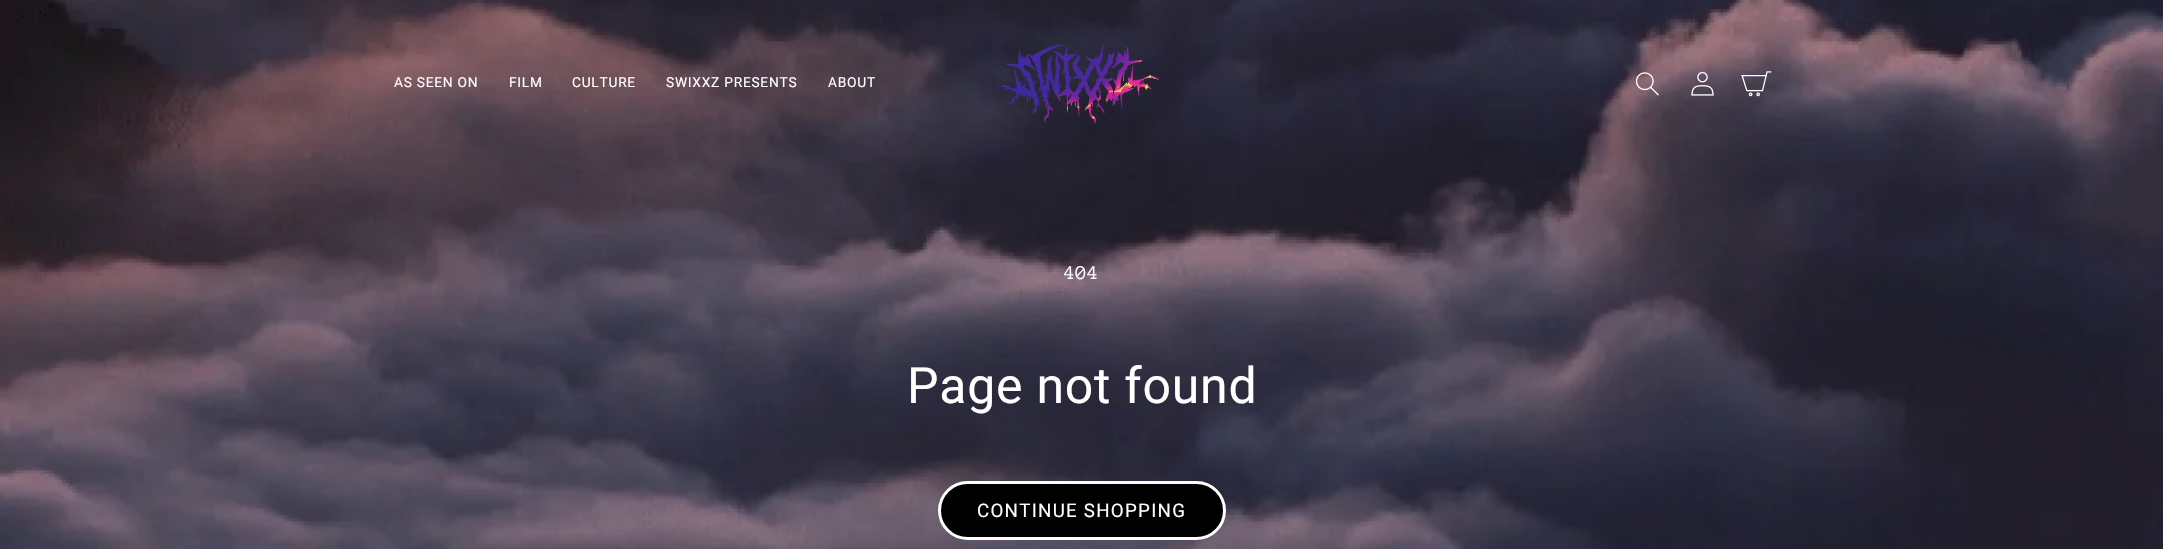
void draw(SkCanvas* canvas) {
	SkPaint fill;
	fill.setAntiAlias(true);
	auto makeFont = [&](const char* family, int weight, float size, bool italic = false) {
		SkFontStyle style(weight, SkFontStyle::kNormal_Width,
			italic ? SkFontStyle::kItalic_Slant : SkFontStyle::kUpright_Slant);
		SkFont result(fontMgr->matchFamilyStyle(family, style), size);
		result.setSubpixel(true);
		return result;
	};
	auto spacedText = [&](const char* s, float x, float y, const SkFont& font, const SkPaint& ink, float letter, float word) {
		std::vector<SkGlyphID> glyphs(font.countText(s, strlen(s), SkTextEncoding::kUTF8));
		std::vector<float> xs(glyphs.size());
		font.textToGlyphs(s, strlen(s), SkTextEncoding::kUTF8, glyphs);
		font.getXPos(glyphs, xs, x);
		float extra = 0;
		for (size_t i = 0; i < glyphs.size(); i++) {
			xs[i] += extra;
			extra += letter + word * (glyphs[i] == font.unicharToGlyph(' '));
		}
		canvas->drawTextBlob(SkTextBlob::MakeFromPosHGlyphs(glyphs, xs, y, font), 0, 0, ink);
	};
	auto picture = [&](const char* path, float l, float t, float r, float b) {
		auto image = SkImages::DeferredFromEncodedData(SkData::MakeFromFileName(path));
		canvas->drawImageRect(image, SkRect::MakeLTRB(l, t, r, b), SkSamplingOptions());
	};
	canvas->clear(0xFFFFFFFF);
	picture("image0.png", 0, 0, 2163, 549);
	picture("image1.png", 996, 44, 1159, 124);
	picture("image2.png", 1635, 72, 1659, 96);
	picture("image3.png", 1691, 71, 1714, 96);
	picture("image4.png", 1741, 71, 1772, 97);
	fill.setColor(0xFF000000);
	canvas->drawRoundRect(SkRect::MakeLTRB(939.5f, 482.5f, 1224.5f, 538.5f), 28, 28, fill);
	fill.setStyle(SkPaint::kStroke_Style);
	fill.setStrokeWidth(3);
	fill.setColor(0xFFFFFFFF);
	canvas->drawRoundRect(SkRect::MakeLTRB(939.5f, 482.5f, 1224.5f, 538.5f), 28, 28, fill);
	auto font1 = makeFont("Roboto", 400, 13.75f);
	fill.setStyle(SkPaint::kFill_Style);
	spacedText("AS SEEN ON", 394, 87, font1, fill, 0.75f, 0);
	spacedText("FILM", 509, 87, font1, fill, 0.75f, 0);
	spacedText("CULTURE", 572, 87, font1, fill, 0.75f, 0);
	spacedText("SWIXXZ PRESENTS", 666, 87, font1, fill, 0.75f, 0);
	spacedText("ABOUT", 828, 87, font1, fill, 0.75f, 0);
	auto font2 = makeFont("Anonymous Pro", 400, 20);
	spacedText("404", 1064, 279, font2, fill, 0.75f, 0);
	auto font3 = makeFont("Roboto", 400, 50);
	spacedText("Page not found", 907, 403, font3, fill, 0.75f, 0);
	auto font4 = makeFont("Roboto", 400, 18.75f);
	spacedText("CONTINUE SHOPPING", 977, 517, font4, fill, 1.25f, 0);
}
